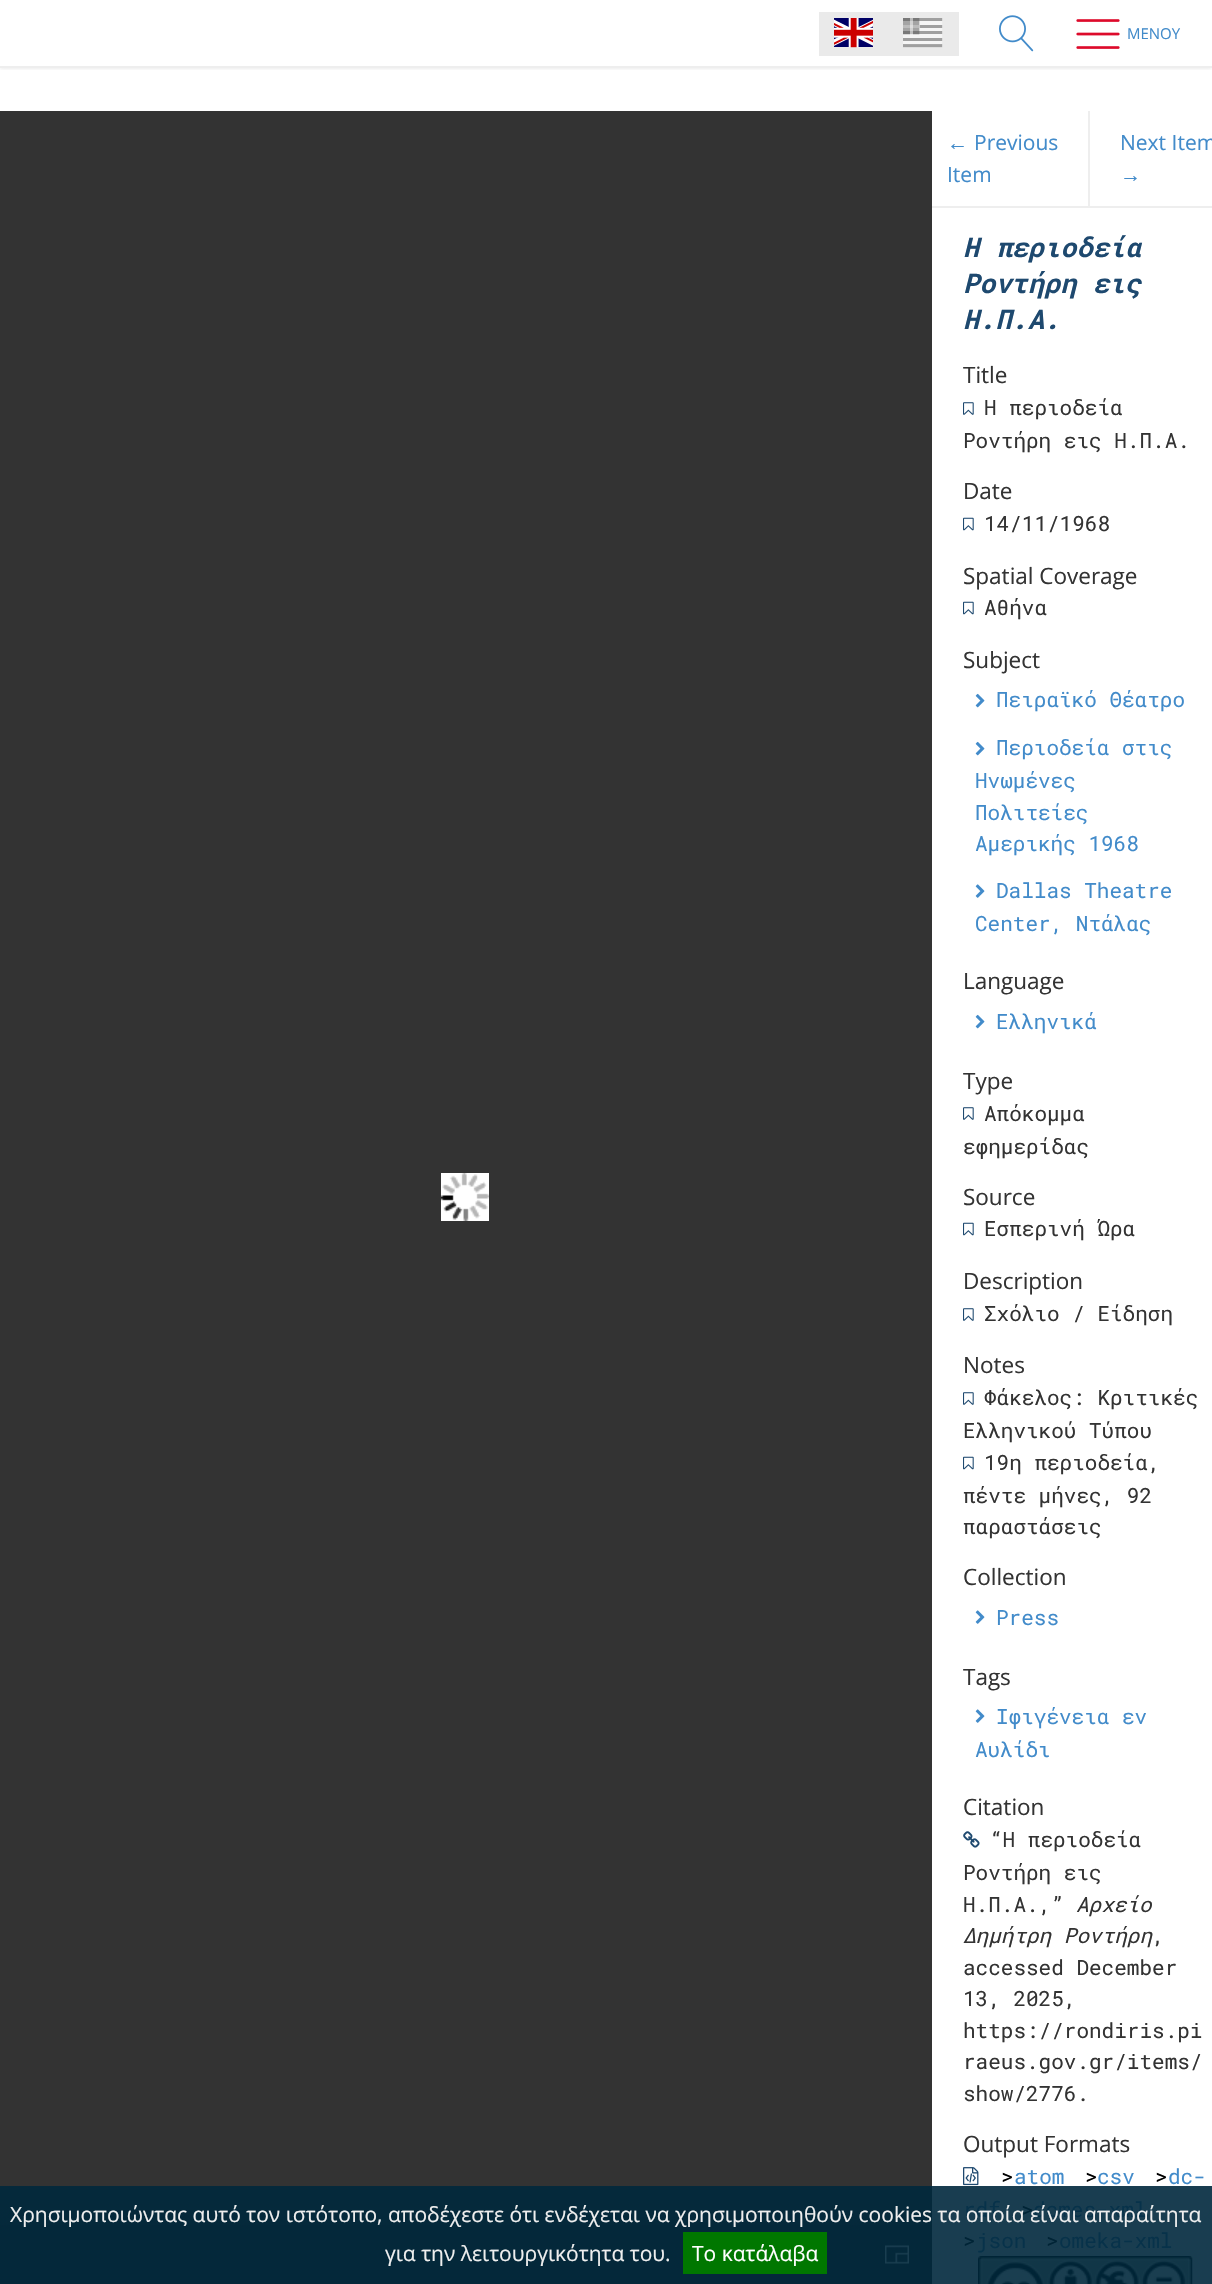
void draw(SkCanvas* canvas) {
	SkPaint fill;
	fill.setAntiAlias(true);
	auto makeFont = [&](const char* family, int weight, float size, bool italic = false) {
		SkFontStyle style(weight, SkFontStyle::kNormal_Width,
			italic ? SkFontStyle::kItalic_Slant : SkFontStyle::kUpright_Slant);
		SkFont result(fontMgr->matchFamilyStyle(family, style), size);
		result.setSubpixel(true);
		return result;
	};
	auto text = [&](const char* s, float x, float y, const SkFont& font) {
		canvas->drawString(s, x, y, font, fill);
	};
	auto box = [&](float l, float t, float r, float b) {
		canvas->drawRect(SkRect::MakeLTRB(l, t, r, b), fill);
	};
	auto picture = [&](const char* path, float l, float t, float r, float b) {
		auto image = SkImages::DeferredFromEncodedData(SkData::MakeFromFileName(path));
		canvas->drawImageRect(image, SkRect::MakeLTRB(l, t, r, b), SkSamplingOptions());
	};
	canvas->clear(0xFFFFFFFF);
	fill.setColor(0xFF193D50);
	box(932, 2186, 1212, 2284);
	canvas->save();
	canvas->clipRect(SkRect::MakeLTRB(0, 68, 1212, 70));
	fill.setColor(0x1C000000);
	fill.setMaskFilter(SkMaskFilter::MakeBlur(kNormal_SkBlurStyle, 2));
	canvas->drawRect(SkRect::MakeLTRB(0, 2, 1212, 68), fill);
	fill.setMaskFilter(nullptr);
	canvas->restore();
	fill.setColor(0xFFEAEAEA);
	box(819, 12, 959, 56);
	picture("image0.png", 834, 18, 873, 48);
	picture("image1.png", 903, 18, 943, 48);
	picture("image2.png", 999, 15, 1034, 52);
	picture("image3.png", 1076, 19, 1120, 49);
	fill.setColor(0xFFEEEEEE);
	box(0, 66, 1212, 68);
	fill.setColor(0xFF333333);
	box(0, 111, 932, 2186);
	fill.setColor(0xFF05293B);
	box(0, 2186, 932, 2225);
	picture("image4.png", 441, 1173, 489, 1221);
	fill.setColor(0xFF04283A);
	box(0, 2225, 932, 2284);
	picture("image5.png", 885, 2245, 909, 2264);
	fill.setColor(0xFFEEEEEE);
	box(932, 206, 1212, 208);
	box(1088, 111, 1090, 206);
	picture("image6.png", 963, 402, 974, 415);
	picture("image7.png", 963, 517, 974, 531);
	picture("image7.png", 963, 601, 974, 615);
	picture("image8.png", 975, 693, 985, 708);
	picture("image8.png", 975, 741, 985, 756);
	picture("image9.png", 975, 884, 985, 898);
	picture("image8.png", 975, 1014, 985, 1029);
	picture("image6.png", 963, 1107, 974, 1120);
	picture("image7.png", 963, 1222, 974, 1236);
	picture("image6.png", 963, 1308, 974, 1321);
	picture("image6.png", 963, 1392, 974, 1405);
	picture("image7.png", 963, 1456, 974, 1470);
	picture("image9.png", 975, 1610, 985, 1624);
	picture("image9.png", 975, 1709, 985, 1723);
	picture("image10.png", 963, 1831, 980, 1848);
	picture("image11.png", 963, 2167, 979, 2186);
	picture("image12.png", 978, 2256, 1193, 2284);
	fill.setColor(0xFF007700);
	box(683, 2232, 827, 2274);
	auto font1 = makeFont("Open Sans", 400, 15);
	fill.setColor(0xFF428BCA);
	text("MENOY", 1127, 39, font1);
	auto font2 = makeFont("Liberation Sans", 400, 21);
	text("←", 947, 150, font2);
	auto font3 = makeFont("Open Sans", 400, 21);
	text("Previous", 974, 150, font3);
	text("Item", 947, 182, font3);
	text("Next Item", 1120, 150, font3);
	text("→", 1120, 182, font2);
	auto font4 = makeFont("Roboto Mono", 700, 27, true);
	fill.setColor(0xFF1E496F);
	text("Η περιοδεία", 963, 257, font4);
	text("Ροντήρη εις", 963, 293, font4);
	text("Η.Π.Α.", 963, 329, font4);
	auto font5 = makeFont("Open Sans", 400, 22.5f);
	fill.setColor(0xFF333333);
	text("Title", 963, 383, font5);
	auto font6 = makeFont("Roboto Mono", 400, 21);
	text("Η περιοδεία", 984, 415, font6);
	text("Ροντήρη εις Η.Π.Α.", 963, 448, font6);
	text("Date", 963, 499, font5);
	text("14/11/1968", 984, 531, font6);
	text("Spatial Coverage", 963, 584, font5);
	text("Αθήνα", 984, 615, font6);
	text("Subject", 963, 668, font5);
	fill.setColor(0xFF428BCA);
	text("Πειραϊκό Θέατρο", 996, 707, font6);
	text("Περιοδεία στις", 996, 755, font6);
	text("Ηνωμένες", 975, 788, font6);
	text("Πολιτείες", 975, 820, font6);
	text("Αμερικής 1968", 975, 851, font6);
	text("Dallas Theatre", 996, 898, font6);
	text("Center, Ντάλας", 975, 931, font6);
	fill.setColor(0xFF333333);
	text("Language", 963, 989, font5);
	fill.setColor(0xFF428BCA);
	text("Ελληνικά", 996, 1029, font6);
	fill.setColor(0xFF333333);
	text("Type", 963, 1089, font5);
	text("Απόκομμα", 984, 1121, font6);
	text("εφημερίδας", 963, 1154, font6);
	text("Source", 963, 1205, font5);
	text("Εσπερινή Ώρα", 984, 1236, font6);
	text("Description", 963, 1289, font5);
	text("Σχόλιο / Είδηση", 984, 1321, font6);
	text("Notes", 963, 1373, font5);
	text("Φάκελος: Κριτικές", 984, 1405, font6);
	text("Ελληνικού Τύπου", 963, 1438, font6);
	text("19η περιοδεία,", 984, 1470, font6);
	text("πέντε μήνες, 92", 963, 1503, font6);
	text("παραστάσεις", 963, 1534, font6);
	text("Collection", 963, 1585, font5);
	fill.setColor(0xFF428BCA);
	text("Press", 996, 1625, font6);
	fill.setColor(0xFF333333);
	text("Tags", 963, 1685, font5);
	fill.setColor(0xFF428BCA);
	text("Ιφιγένεια εν", 996, 1724, font6);
	text("Αυλίδι", 975, 1757, font6);
	fill.setColor(0xFF333333);
	text("Citation", 963, 1815, font5);
	text("“Η περιοδεία", 990, 1847, font6);
	text("Ροντήρη εις", 963, 1880, font6);
	text("Η.Π.Α.,”", 963, 1912, font6);
	auto font7 = makeFont("Roboto Mono", 400, 21, true);
	text("Αρχείο", 1076, 1912, font7);
	text("Δημήτρη Ροντήρη", 963, 1943, font7);
	text(",", 1152, 1943, font6);
	text("accessed December", 963, 1975, font6);
	text("13, 2025,", 963, 2006, font6);
	text("https://rondiris.pi", 963, 2038, font6);
	text("raeus.gov.gr/items/", 963, 2069, font6);
	text("show/2776.", 963, 2101, font6);
	text("Output Formats", 963, 2152, font5);
	fill.setColor(0xFF000000);
	text(">", 1001, 2184, font6);
	fill.setColor(0xFF428BCA);
	text("atom", 1014, 2184, font6);
	fill.setColor(0xFF000000);
	text(">", 1085, 2184, font6);
	fill.setColor(0xFF428BCA);
	text("csv", 1097, 2184, font6);
	fill.setColor(0xFF000000);
	text(">", 1155, 2184, font6);
	fill.setColor(0xFF428BCA);
	text("dc-", 1168, 2184, font6);
	fill.setColor(0xFF07324A);
	text("rdf", 963, 2217, font6);
	fill.setColor(0xFF002436);
	text(">", 1021, 2217, font6);
	fill.setColor(0xFF07324A);
	text("dcmes-xml", 1033, 2217, font6);
	fill.setColor(0xFF002436);
	text(">", 963, 2248, font6);
	fill.setColor(0xFF07324A);
	text("json", 976, 2248, font6);
	fill.setColor(0xFF002436);
	text(">", 1046, 2248, font6);
	fill.setColor(0xFF07324A);
	text("omeka-xml", 1059, 2248, font6);
	fill.setColor(0xFFEEEEEE);
	text("Χρησιμοποιώντας αυτό τον ιστότοπο, αποδέχεστε ότι ενδέχεται να χρησιμοποιηθούν cookies τα οποία είναι απαραίτητα", 10, 2222, font3);
	text("για την λειτουργικότητα του.", 385, 2261, font3);
	fill.setColor(0xFFFFFFFF);
	text("Το κατάλαβα", 692, 2261, font3);
}
